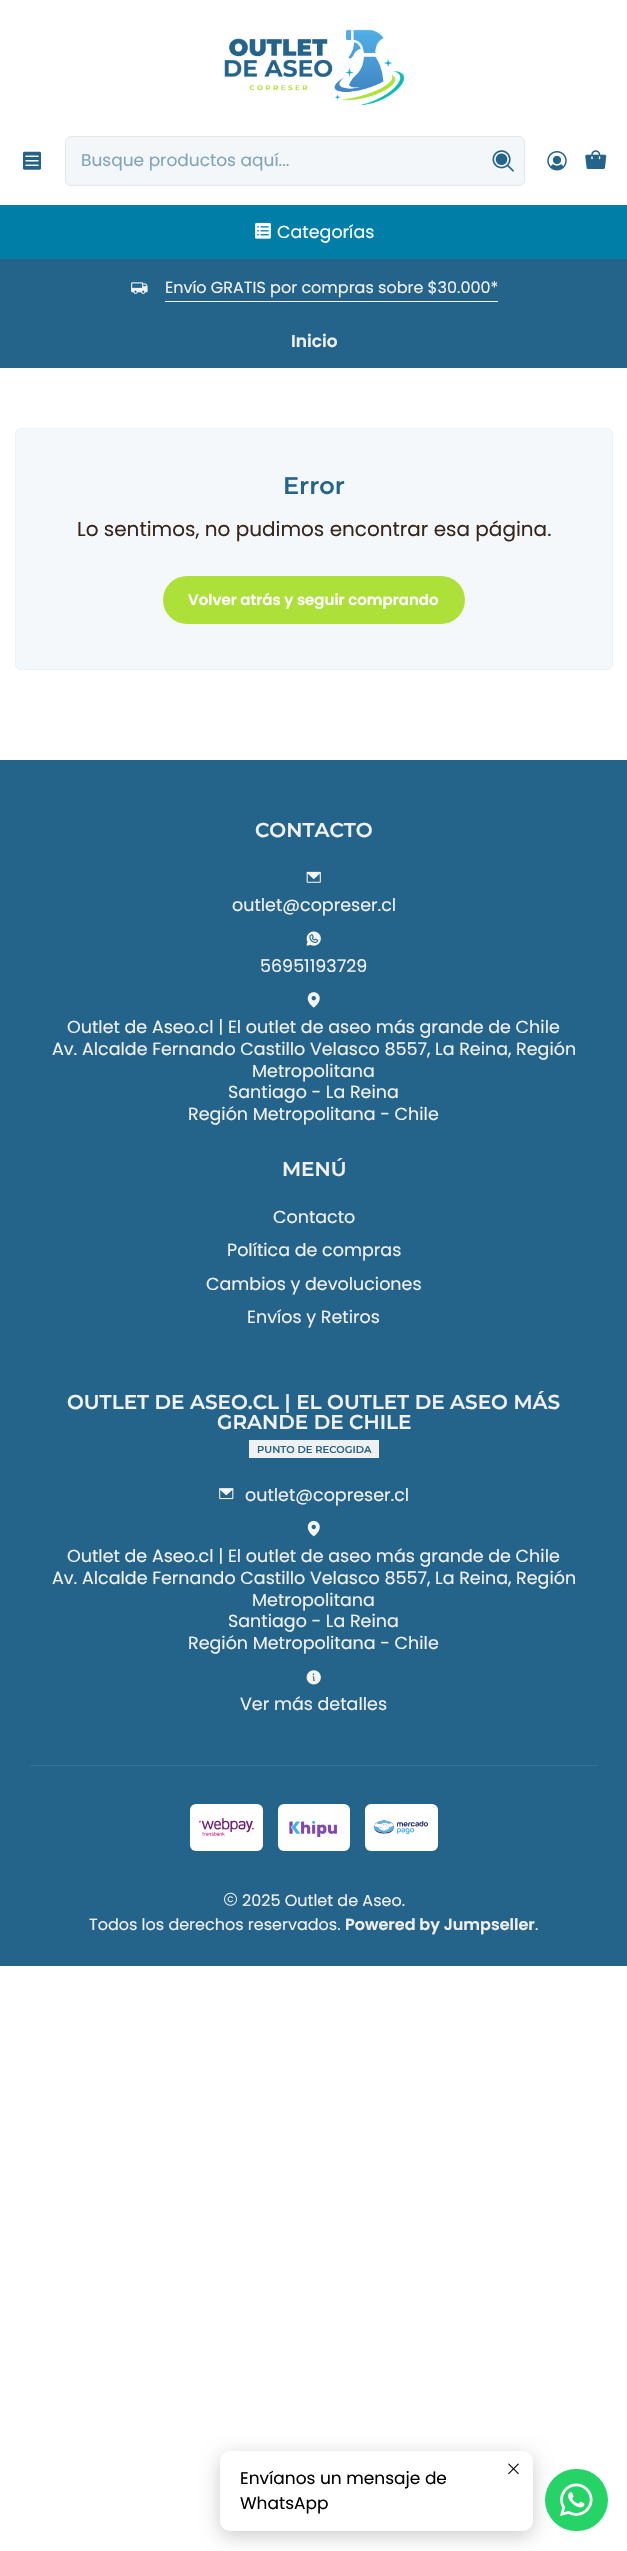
void draw(SkCanvas* canvas) {
	SkPaint fill;
	fill.setAntiAlias(true);
	auto makeFont = [&](const char* family, int weight, float size, bool italic = false) {
		SkFontStyle style(weight, SkFontStyle::kNormal_Width,
			italic ? SkFontStyle::kItalic_Slant : SkFontStyle::kUpright_Slant);
		SkFont result(fontMgr->matchFamilyStyle(family, style), size);
		result.setSubpixel(true);
		return result;
	};
	auto text = [&](const char* s, float x, float y, const SkFont& font) {
		canvas->drawString(s, x, y, font, fill);
	};
	auto box = [&](float l, float t, float r, float b) {
		canvas->drawRect(SkRect::MakeLTRB(l, t, r, b), fill);
	};
	auto roundBox = [&](float l, float t, float r, float b, float radius) {
		canvas->drawRoundRect(SkRect::MakeLTRB(l, t, r, b), radius, radius, fill);
	};
	auto picture = [&](const char* path, float l, float t, float r, float b) {
		auto image = SkImages::DeferredFromEncodedData(SkData::MakeFromFileName(path));
		canvas->drawImageRect(image, SkRect::MakeLTRB(l, t, r, b), SkSamplingOptions());
	};
	canvas->clear(0xFFFFFFFF);
	picture("image0.png", 224, 29, 405, 106);
	picture("image1.png", 23, 151, 41, 170);
	fill.setColor(0xFFF4F7F9);
	canvas->drawRoundRect(SkRect::MakeLTRB(65.5f, 136.5f, 524.5f, 185.5f), 5.5f, 5.5f, fill);
	fill.setStyle(SkPaint::kStroke_Style);
	fill.setStrokeWidth(1);
	fill.setColor(0xFFDFE8EE);
	canvas->drawRoundRect(SkRect::MakeLTRB(65.5f, 136.5f, 524.5f, 185.5f), 5.5f, 5.5f, fill);
	picture("image2.png", 492, 150, 514, 172);
	picture("image3.png", 547, 151, 567, 171);
	picture("image4.png", 585, 150, 607, 169);
	fill.setStyle(SkPaint::kFill_Style);
	fill.setColor(0xFF007EA7);
	box(0, 205, 627, 259);
	picture("image5.png", 255, 222, 271, 239);
	fill.setColor(0xFF24638A);
	box(0, 259, 627, 368);
	picture("image6.png", 131, 282, 148, 294);
	fill.setColor(0xFFF1F1F1);
	box(165, 301, 498, 302);
	fill.setColor(0xFFF5F8FA);
	canvas->drawRoundRect(SkRect::MakeLTRB(15.5f, 428.5f, 612.5f, 669.5f), 5.5f, 5.5f, fill);
	fill.setStyle(SkPaint::kStroke_Style);
	fill.setColor(0xFFEBF1F4);
	canvas->drawRoundRect(SkRect::MakeLTRB(15.5f, 428.5f, 612.5f, 669.5f), 5.5f, 5.5f, fill);
	fill.setStyle(SkPaint::kFill_Style);
	fill.setColor(0xFFADE139);
	roundBox(163, 576, 465, 624, 24);
	fill.setColor(0xFF24638A);
	box(0, 760, 627, 1966);
	picture("image7.png", 306, 871, 321, 883);
	picture("image8.png", 306, 931, 321, 946);
	picture("image9.png", 307, 992, 320, 1008);
	fill.setColor(0xFFF1F1F1);
	box(249, 1440, 379, 1458);
	picture("image10.png", 219, 1488, 234, 1500);
	picture("image11.png", 307, 1520, 320, 1537);
	picture("image12.png", 306, 1670, 321, 1685);
	fill.setColor(0xFF397194);
	box(30, 1765, 598, 1766);
	fill.setColor(0xFFFFFFFF);
	roundBox(190, 1804, 263, 1851, 6);
	fill.setStyle(SkPaint::kStroke_Style);
	fill.setColor(0x1AF1F1F1);
	canvas->drawRoundRect(SkRect::MakeLTRB(190.5f, 1804.5f, 262.5f, 1850.5f), 5.5f, 5.5f, fill);
	picture("image13.png", 199, 1818, 254, 1836);
	fill.setStyle(SkPaint::kFill_Style);
	fill.setColor(0xFFFFFFFF);
	roundBox(278, 1804, 350, 1851, 6);
	fill.setStyle(SkPaint::kStroke_Style);
	fill.setColor(0x1AF1F1F1);
	canvas->drawRoundRect(SkRect::MakeLTRB(278.5f, 1804.5f, 349.5f, 1850.5f), 5.5f, 5.5f, fill);
	picture("image14.png", 289, 1820, 337, 1837);
	fill.setStyle(SkPaint::kFill_Style);
	fill.setColor(0xFFFFFFFF);
	roundBox(365, 1804, 438, 1851, 6);
	fill.setStyle(SkPaint::kStroke_Style);
	fill.setColor(0x1AF1F1F1);
	canvas->drawRoundRect(SkRect::MakeLTRB(365.5f, 1804.5f, 437.5f, 1850.5f), 5.5f, 5.5f, fill);
	picture("image15.png", 374, 1820, 428, 1834);
	picture("image16.png", 224, 1892, 237, 1906);
	fill.setStyle(SkPaint::kFill_Style);
	fill.setColor(0x33000000);
	fill.setMaskFilter(SkMaskFilter::MakeBlur(kNormal_SkBlurStyle, 9.5f));
	canvas->drawRoundRect(SkRect::MakeLTRB(220, 2456, 533, 2536), 10, 10, fill);
	fill.setMaskFilter(nullptr);
	fill.setColor(0xFFFFFFFF);
	roundBox(220, 2451, 533, 2531, 10);
	picture("image17.png", 508, 2463, 519, 2475);
	fill.setColor(0xFF25D366);
	roundBox(545, 2469, 608, 2531, 31);
	picture("image18.png", 560, 2483, 593, 2516);
	auto font1 = makeFont("Poppins", 400, 17);
	fill.setColor(0xFF80A4BB);
	text("Busque productos aquí...", 81, 166, font1);
	auto font2 = makeFont("Poppins", 400, 17.5f);
	fill.setColor(0xFFFFFFFF);
	text("Categorías", 277, 238, font2);
	auto font3 = makeFont("Poppins", 400, 16);
	fill.setColor(0xFFF1F1F1);
	text("Envío GRATIS por compras sobre $30.000*", 165, 293, font3);
	auto font4 = makeFont("Poppins", 600, 17);
	text("Inicio", 291, 347, font4);
	auto font5 = makeFont("Montserrat", 600, 24);
	fill.setColor(0xFF24638A);
	text("Error", 283, 494, font5);
	auto font6 = makeFont("Poppins", 400, 20);
	fill.setColor(0xFF35271D);
	text("Lo sentimos, no pudimos encontrar esa página.", 77, 536, font6);
	auto font7 = makeFont("Poppins", 600, 15);
	fill.setColor(0xFFFFFFFF);
	text("Volver atrás y seguir comprando", 188, 605, font7);
	auto font8 = makeFont("Montserrat", 600, 20);
	fill.setColor(0xFFF1F1F1);
	text("CONTACTO", 255, 837, font8);
	text("outlet@copreser.cl", 232, 911, font2);
	text("56951193729", 260, 972, font2);
	text("Outlet de Aseo.cl | El outlet de aseo más grande de Chile", 67, 1033, font2);
	text("Av. Alcalde Fernando Castillo Velasco 8557, La Reina, Región", 52, 1055, font2);
	text("Metropolitana", 252, 1077, font2);
	text("Santiago - La Reina", 228, 1098, font2);
	text("Región Metropolitana - Chile", 188, 1120, font2);
	text("MENÚ", 282, 1176, font8);
	text("Contacto", 273, 1223, font2);
	text("Política de compras", 227, 1256, font2);
	text("Cambios y devoluciones", 206, 1290, font2);
	text("Envíos y Retiros", 247, 1323, font2);
	text("OUTLET DE ASEO.CL | EL OUTLET DE ASEO MÁS", 67, 1409, font8);
	text("GRANDE DE CHILE", 217, 1429, font8);
	auto font9 = makeFont("Montserrat", 600, 10);
	fill.setColor(0xFF24638A);
	text("PUNTO DE RECOGIDA", 257, 1453, font9);
	fill.setColor(0xFFF1F1F1);
	text("outlet@copreser.cl", 245, 1501, font2);
	text("Outlet de Aseo.cl | El outlet de aseo más grande de Chile", 67, 1562, font2);
	text("Av. Alcalde Fernando Castillo Velasco 8557, La Reina, Región", 52, 1584, font2);
	text("Metropolitana", 252, 1606, font2);
	text("Santiago - La Reina", 228, 1627, font2);
	text("Región Metropolitana - Chile", 188, 1649, font2);
	text("Ver más detalles", 240, 1710, font2);
	text("2025 Outlet de Aseo.", 242, 1906, font3);
	text("Todos los derechos reservados.", 89, 1930, font3);
	auto font10 = makeFont("Poppins", 600, 16);
	text("Powered by Jumpseller", 345, 1930, font10);
	text(".", 535, 1930, font3);
	fill.setColor(0xFF000000);
	text("Envíanos un mensaje de", 240, 2484, font1);
	text("WhatsApp", 240, 2509, font1);
}
